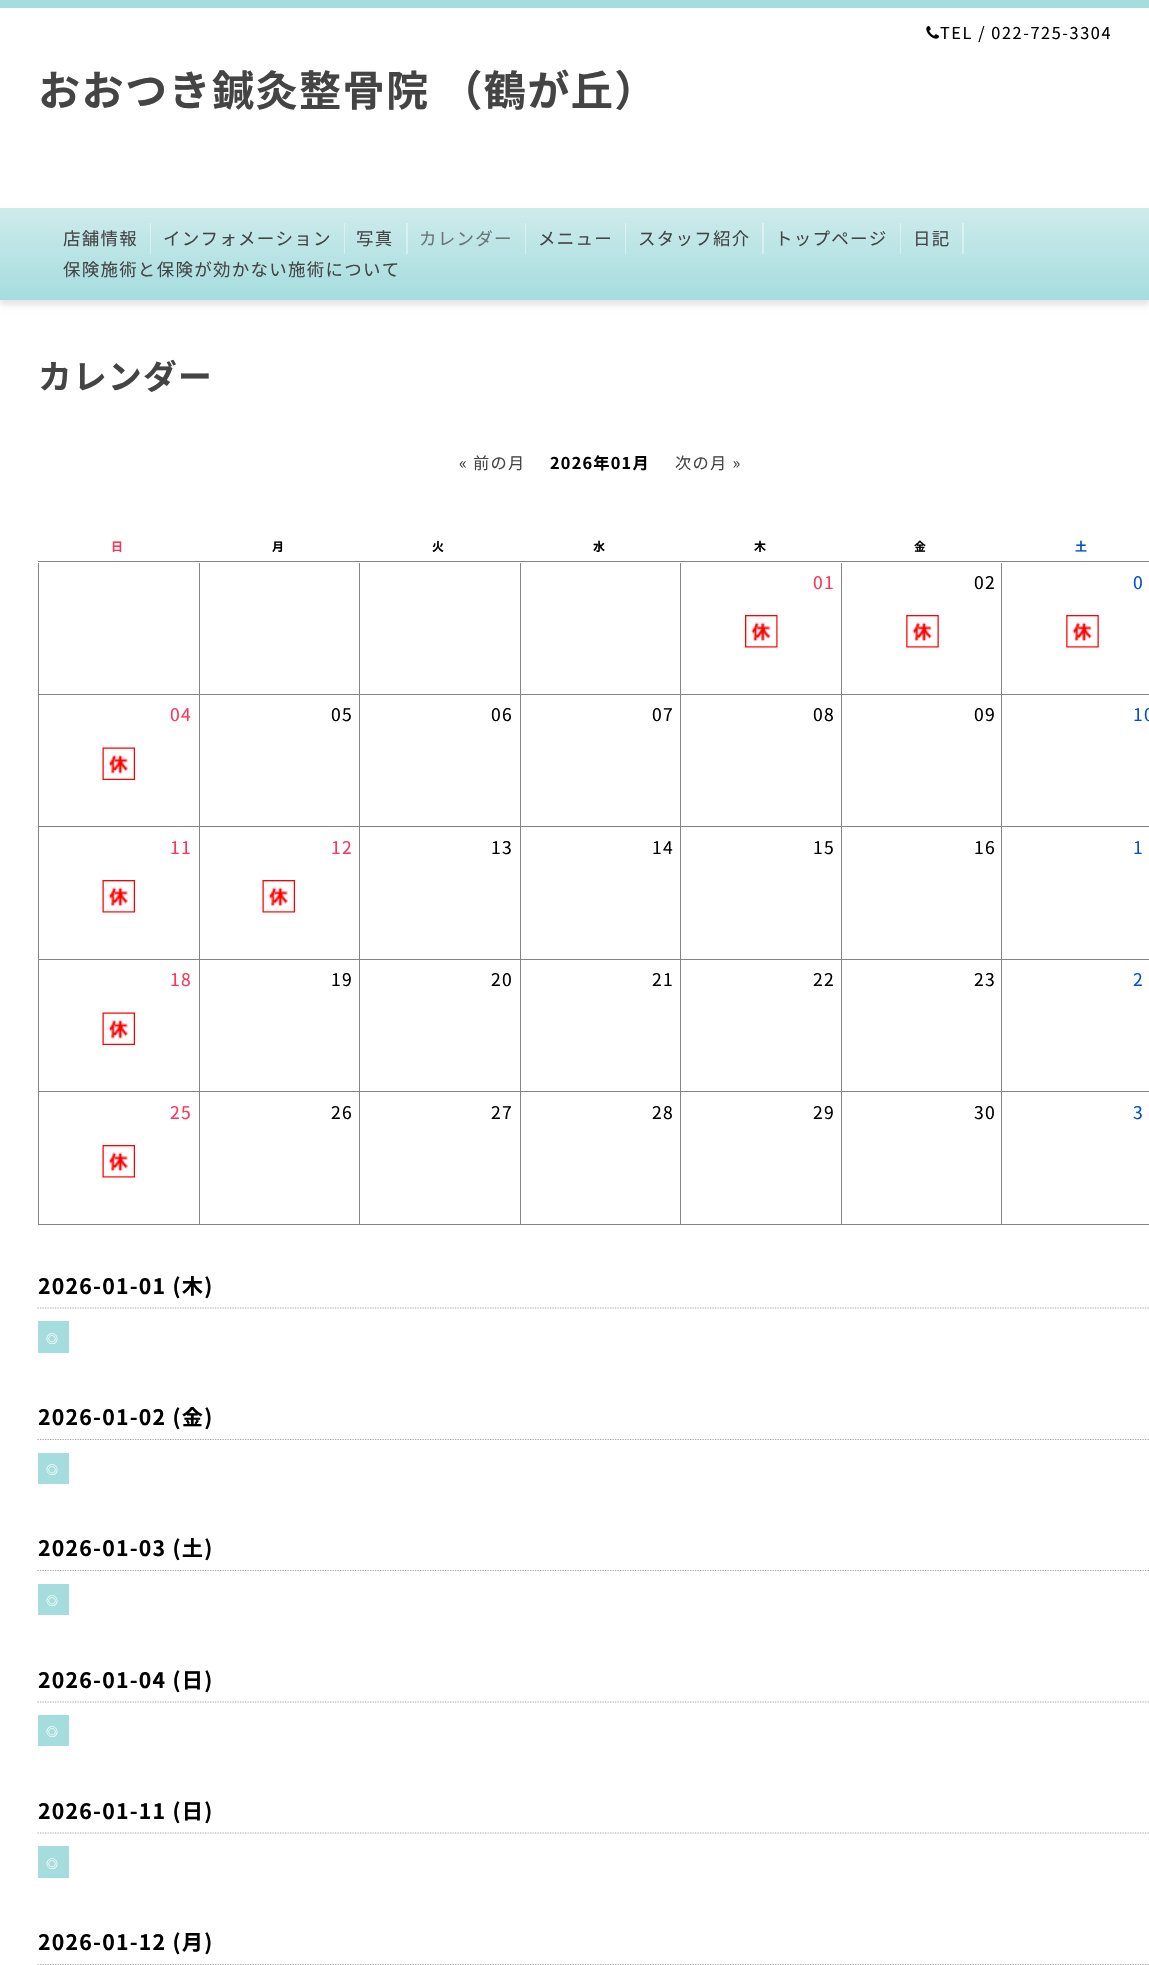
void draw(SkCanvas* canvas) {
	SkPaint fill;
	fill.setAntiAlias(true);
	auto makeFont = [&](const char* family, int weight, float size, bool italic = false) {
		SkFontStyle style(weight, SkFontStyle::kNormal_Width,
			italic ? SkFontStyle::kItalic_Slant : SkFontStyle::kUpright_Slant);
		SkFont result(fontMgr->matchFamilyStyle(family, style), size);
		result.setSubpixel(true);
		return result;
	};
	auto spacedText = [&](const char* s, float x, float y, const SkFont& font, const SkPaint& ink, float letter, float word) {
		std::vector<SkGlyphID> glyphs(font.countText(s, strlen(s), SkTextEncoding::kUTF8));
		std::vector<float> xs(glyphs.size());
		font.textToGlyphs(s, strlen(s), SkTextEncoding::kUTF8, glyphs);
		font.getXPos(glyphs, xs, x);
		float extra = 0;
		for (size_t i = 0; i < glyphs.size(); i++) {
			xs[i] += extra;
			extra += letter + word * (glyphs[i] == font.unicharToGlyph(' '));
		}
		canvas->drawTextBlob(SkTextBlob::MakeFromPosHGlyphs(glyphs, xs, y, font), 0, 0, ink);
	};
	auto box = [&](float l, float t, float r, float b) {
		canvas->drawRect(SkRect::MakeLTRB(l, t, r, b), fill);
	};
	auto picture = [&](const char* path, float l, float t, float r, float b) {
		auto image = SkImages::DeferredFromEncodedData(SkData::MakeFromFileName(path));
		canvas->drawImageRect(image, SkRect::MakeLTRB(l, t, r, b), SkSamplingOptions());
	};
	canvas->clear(0xFFFFFFFF);
	fill.setColor(0xFFA5DDDE);
	box(0, 0, 1149, 8);
	picture("image0.png", 926, 26, 939, 39);
	fill.setColor(0x1A000000);
	fill.setMaskFilter(SkMaskFilter::MakeBlur(kNormal_SkBlurStyle, 3));
	canvas->drawRect(SkRect::MakeLTRB(0, 213, 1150, 305), fill);
	fill.setMaskFilter(nullptr);
	{
		const SkColor colors[] = {0xFFCFEBEC, 0xFFA5DDDE};
		const float stops[] = {0, 1};
		const SkPoint ends[] = {{575, 207}, {575, 300}};
		fill.setShader(SkGradientShader::MakeLinear(ends, colors, stops, 2, SkTileMode::kClamp));
		fill.setAlpha(255);
	}
	box(0, 208, 1149, 300);
	fill.setShader(nullptr);
	fill.setColor(0x66FFFFFF);
	canvas->drawPath(SkPathBuilder().moveTo(51, 254).lineTo(151, 254).lineTo(151, 223).lineTo(150, 223).lineTo(150, 254).close().detach(), fill);
	canvas->drawPath(SkPathBuilder().moveTo(151, 254).lineTo(345, 254).lineTo(345, 223).lineTo(344, 223).lineTo(344, 254).close().detach(), fill);
	canvas->drawPath(SkPathBuilder().moveTo(345, 254).lineTo(408, 254).lineTo(408, 223).lineTo(406, 223).lineTo(406, 254).close().detach(), fill);
	canvas->drawPath(SkPathBuilder().moveTo(408, 254).lineTo(526, 254).lineTo(526, 223).lineTo(525, 223).lineTo(525, 254).close().detach(), fill);
	canvas->drawPath(SkPathBuilder().moveTo(526, 254).lineTo(626, 254).lineTo(626, 223).lineTo(625, 223).lineTo(625, 254).close().detach(), fill);
	canvas->drawPath(SkPathBuilder().moveTo(626, 254).lineTo(764, 254).lineTo(764, 223).lineTo(762, 223).lineTo(762, 254).close().detach(), fill);
	canvas->drawPath(SkPathBuilder().moveTo(764, 254).lineTo(901, 254).lineTo(901, 223).lineTo(900, 223).lineTo(900, 254).close().detach(), fill);
	canvas->drawPath(SkPathBuilder().moveTo(901, 254).lineTo(964, 254).lineTo(964, 223).lineTo(962, 223).lineTo(962, 254).close().detach(), fill);
	fill.setColor(0xFF848484);
	box(38, 561, 1149, 562);
	box(38, 694, 1149, 695);
	box(38, 563, 39, 695);
	box(199, 563, 200, 695);
	box(359, 563, 360, 695);
	box(520, 563, 521, 695);
	box(680, 563, 681, 695);
	picture("image1.png", 745, 615, 778, 648);
	box(841, 563, 842, 695);
	picture("image2.png", 906, 615, 939, 648);
	box(1001, 563, 1002, 695);
	picture("image2.png", 1066, 615, 1099, 648);
	box(38, 826, 1149, 827);
	box(38, 695, 39, 828);
	picture("image3.png", 102, 747, 135, 780);
	box(199, 695, 200, 828);
	box(359, 695, 360, 828);
	box(520, 695, 521, 828);
	box(680, 695, 681, 828);
	box(841, 695, 842, 828);
	box(1001, 695, 1002, 828);
	box(38, 959, 1149, 960);
	box(38, 828, 39, 960);
	picture("image4.png", 102, 880, 135, 913);
	box(199, 828, 200, 960);
	picture("image5.png", 262, 880, 295, 913);
	box(359, 828, 360, 960);
	box(520, 828, 521, 960);
	box(680, 828, 681, 960);
	box(841, 828, 842, 960);
	box(1001, 828, 1002, 960);
	box(38, 1091, 1149, 1092);
	box(38, 960, 39, 1093);
	picture("image3.png", 102, 1012, 135, 1045);
	box(199, 960, 200, 1093);
	box(359, 960, 360, 1093);
	box(520, 960, 521, 1093);
	box(680, 960, 681, 1093);
	box(841, 960, 842, 1093);
	box(1001, 960, 1002, 1093);
	box(38, 1224, 1149, 1225);
	box(38, 1093, 39, 1225);
	picture("image4.png", 102, 1145, 135, 1178);
	box(199, 1093, 200, 1225);
	box(359, 1093, 360, 1225);
	box(520, 1093, 521, 1225);
	box(680, 1093, 681, 1225);
	box(841, 1093, 842, 1225);
	box(1001, 1093, 1002, 1225);
	fill.setStyle(SkPaint::kStroke_Style);
	fill.setStrokeWidth(1.2f);
	fill.setColor(0xFFA3A3A3);
	fill.setPathEffect(SkDashPathEffect::Make({{1.25f, 1.25f}}, 0));
	canvas->drawPath(SkPathBuilder().moveTo(37.5f, 1308).lineTo(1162.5f, 1308).detach(), fill);
	fill.setPathEffect(nullptr);
	fill.setStyle(SkPaint::kFill_Style);
	fill.setColor(0xFFA5DDDE);
	box(38, 1321, 69, 1353);
	fill.setStyle(SkPaint::kStroke_Style);
	fill.setColor(0xFFA3A3A3);
	fill.setPathEffect(SkDashPathEffect::Make({{1.25f, 1.25f}}, 0));
	canvas->drawPath(SkPathBuilder().moveTo(37.5f, 1439.5f).lineTo(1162.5f, 1439.5f).detach(), fill);
	fill.setPathEffect(nullptr);
	fill.setStyle(SkPaint::kFill_Style);
	fill.setColor(0xFFA5DDDE);
	box(38, 1453, 69, 1484);
	fill.setStyle(SkPaint::kStroke_Style);
	fill.setColor(0xFFA3A3A3);
	fill.setPathEffect(SkDashPathEffect::Make({{1.25f, 1.25f}}, 0));
	canvas->drawPath(SkPathBuilder().moveTo(37.5f, 1570.5f).lineTo(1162.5f, 1570.5f).detach(), fill);
	fill.setPathEffect(nullptr);
	fill.setStyle(SkPaint::kFill_Style);
	fill.setColor(0xFFA5DDDE);
	box(38, 1584, 69, 1615);
	fill.setStyle(SkPaint::kStroke_Style);
	fill.setColor(0xFFA3A3A3);
	fill.setPathEffect(SkDashPathEffect::Make({{1.25f, 1.25f}}, 0));
	canvas->drawPath(SkPathBuilder().moveTo(37.5f, 1702).lineTo(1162.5f, 1702).detach(), fill);
	fill.setPathEffect(nullptr);
	fill.setStyle(SkPaint::kFill_Style);
	fill.setColor(0xFFA5DDDE);
	box(38, 1715, 69, 1746);
	fill.setStyle(SkPaint::kStroke_Style);
	fill.setColor(0xFFA3A3A3);
	fill.setPathEffect(SkDashPathEffect::Make({{1.25f, 1.25f}}, 0));
	canvas->drawPath(SkPathBuilder().moveTo(37.5f, 1833).lineTo(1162.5f, 1833).detach(), fill);
	fill.setPathEffect(nullptr);
	fill.setStyle(SkPaint::kFill_Style);
	fill.setColor(0xFFA5DDDE);
	box(38, 1846, 69, 1878);
	fill.setStyle(SkPaint::kStroke_Style);
	fill.setColor(0xFFA3A3A3);
	fill.setPathEffect(SkDashPathEffect::Make({{1.25f, 1.25f}}, 0));
	canvas->drawPath(SkPathBuilder().moveTo(37.5f, 1964.5f).lineTo(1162.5f, 1964.5f).detach(), fill);
	fill.setPathEffect(nullptr);
	auto font1 = makeFont("Noto Sans JP", 400, 16.25f);
	fill.setStyle(SkPaint::kFill_Style);
	fill.setColor(0xFF000000);
	spacedText("TEL / 022-725-3304", 940, 39, font1, fill, 1.6f, 0);
	auto font2 = makeFont("Noto Sans JP", 700, 42.25f);
	fill.setColor(0xFF444444);
	spacedText("おおつき鍼灸整骨院 （鶴が丘）", 38, 106, font2, fill, 1.25f, 0);
	auto font3 = makeFont("Noto Sans JP", 400, 17.5f);
	spacedText("店舗情報", 63, 245, font3, fill, 1.25f, 0);
	spacedText("インフォメーション", 163, 245, font3, fill, 1.25f, 0);
	spacedText("写真", 356, 245, font3, fill, 1.25f, 0);
	fill.setColor(0xFF697575);
	spacedText("カレンダー", 419, 245, font3, fill, 1.25f, 0);
	fill.setColor(0xFF444444);
	spacedText("メニュー", 538, 245, font3, fill, 1.25f, 0);
	spacedText("スタッフ紹介", 638, 245, font3, fill, 1.25f, 0);
	spacedText("トップページ", 775, 245, font3, fill, 1.25f, 0);
	spacedText("日記", 913, 245, font3, fill, 1.25f, 0);
	spacedText("保険施術と保険が効かない施術について", 63, 276, font3, fill, 1.25f, 0);
	auto font4 = makeFont("Noto Sans JP", 700, 33.75f);
	spacedText("カレンダー", 38, 389, font4, fill, 1.25f, 0);
	spacedText("« 前の月", 459, 469, font1, fill, 1.25f, 0);
	auto font5 = makeFont("Noto Sans JP", 700, 16.25f);
	fill.setColor(0xFF000000);
	spacedText("2026年01月", 550, 469, font5, fill, 1.25f, 0);
	fill.setColor(0xFF444444);
	spacedText("次の月 »", 675, 469, font1, fill, 1.25f, 0);
	auto font6 = makeFont("Noto Sans JP", 700, 12);
	fill.setColor(0xFFFF3355);
	spacedText("日", 111, 551, font6, fill, 1.25f, 0);
	fill.setColor(0xFF000000);
	spacedText("月", 272, 551, font6, fill, 1.25f, 0);
	spacedText("火", 432, 551, font6, fill, 1.25f, 0);
	spacedText("水", 593, 551, font6, fill, 1.25f, 0);
	spacedText("木", 754, 551, font6, fill, 1.25f, 0);
	spacedText("金", 914, 551, font6, fill, 1.25f, 0);
	fill.setColor(0xFF0250D0);
	spacedText("土", 1075, 551, font6, fill, 1.25f, 0);
	fill.setColor(0xFFFF3355);
	spacedText("01", 813, 589, font3, fill, 1.25f, 0);
	fill.setColor(0xFF000000);
	spacedText("02", 974, 589, font3, fill, 1.25f, 0);
	fill.setColor(0xFF0250D0);
	spacedText("0", 1133, 589, font3, fill, 1.25f, 0);
	fill.setColor(0xFFFF3355);
	spacedText("04", 170, 721, font3, fill, 1.25f, 0);
	fill.setColor(0xFF000000);
	spacedText("05", 331, 721, font3, fill, 1.25f, 0);
	spacedText("06", 491, 721, font3, fill, 1.25f, 0);
	spacedText("07", 652, 721, font3, fill, 1.25f, 0);
	spacedText("08", 813, 721, font3, fill, 1.25f, 0);
	spacedText("09", 974, 721, font3, fill, 1.25f, 0);
	fill.setColor(0xFF0250D0);
	spacedText("10", 1133, 721, font3, fill, 1.25f, 0);
	fill.setColor(0xFFFF3355);
	spacedText("11", 170, 854, font3, fill, 1.25f, 0);
	spacedText("12", 331, 854, font3, fill, 1.25f, 0);
	fill.setColor(0xFF000000);
	spacedText("13", 491, 854, font3, fill, 1.25f, 0);
	spacedText("14", 652, 854, font3, fill, 1.25f, 0);
	spacedText("15", 813, 854, font3, fill, 1.25f, 0);
	spacedText("16", 974, 854, font3, fill, 1.25f, 0);
	fill.setColor(0xFF0250D0);
	spacedText("1", 1133, 854, font3, fill, 1.25f, 0);
	fill.setColor(0xFFFF3355);
	spacedText("18", 170, 986, font3, fill, 1.25f, 0);
	fill.setColor(0xFF000000);
	spacedText("19", 331, 986, font3, fill, 1.25f, 0);
	spacedText("20", 491, 986, font3, fill, 1.25f, 0);
	spacedText("21", 652, 986, font3, fill, 1.25f, 0);
	spacedText("22", 813, 986, font3, fill, 1.25f, 0);
	spacedText("23", 974, 986, font3, fill, 1.25f, 0);
	fill.setColor(0xFF0250D0);
	spacedText("2", 1133, 986, font3, fill, 1.25f, 0);
	fill.setColor(0xFFFF3355);
	spacedText("25", 170, 1119, font3, fill, 1.25f, 0);
	fill.setColor(0xFF000000);
	spacedText("26", 331, 1119, font3, fill, 1.25f, 0);
	spacedText("27", 491, 1119, font3, fill, 1.25f, 0);
	spacedText("28", 652, 1119, font3, fill, 1.25f, 0);
	spacedText("29", 813, 1119, font3, fill, 1.25f, 0);
	spacedText("30", 974, 1119, font3, fill, 1.25f, 0);
	fill.setColor(0xFF0250D0);
	spacedText("3", 1133, 1119, font3, fill, 1.25f, 0);
	auto font7 = makeFont("Noto Sans JP", 700, 21.25f);
	fill.setColor(0xFF000000);
	spacedText("2026-01-01 (木)", 38, 1294, font7, fill, 1.25f, 0);
	auto font8 = makeFont("WenQuanYi Zen Hei", 500, 12);
	fill.setColor(0xFFFFFFFF);
	spacedText("◎", 46, 1343, font8, fill, 1.25f, 0);
	fill.setColor(0xFF000000);
	spacedText("2026-01-02 (金)", 38, 1425, font7, fill, 1.25f, 0);
	fill.setColor(0xFFFFFFFF);
	spacedText("◎", 46, 1474, font8, fill, 1.25f, 0);
	fill.setColor(0xFF000000);
	spacedText("2026-01-03 (土)", 38, 1556, font7, fill, 1.25f, 0);
	fill.setColor(0xFFFFFFFF);
	spacedText("◎", 46, 1605, font8, fill, 1.25f, 0);
	fill.setColor(0xFF000000);
	spacedText("2026-01-04 (日)", 38, 1688, font7, fill, 1.25f, 0);
	fill.setColor(0xFFFFFFFF);
	spacedText("◎", 46, 1736, font8, fill, 1.25f, 0);
	fill.setColor(0xFF000000);
	spacedText("2026-01-11 (日)", 38, 1819, font7, fill, 1.25f, 0);
	fill.setColor(0xFFFFFFFF);
	spacedText("◎", 46, 1868, font8, fill, 1.25f, 0);
	fill.setColor(0xFF000000);
	spacedText("2026-01-12 (月)", 38, 1950, font7, fill, 1.25f, 0);
}
